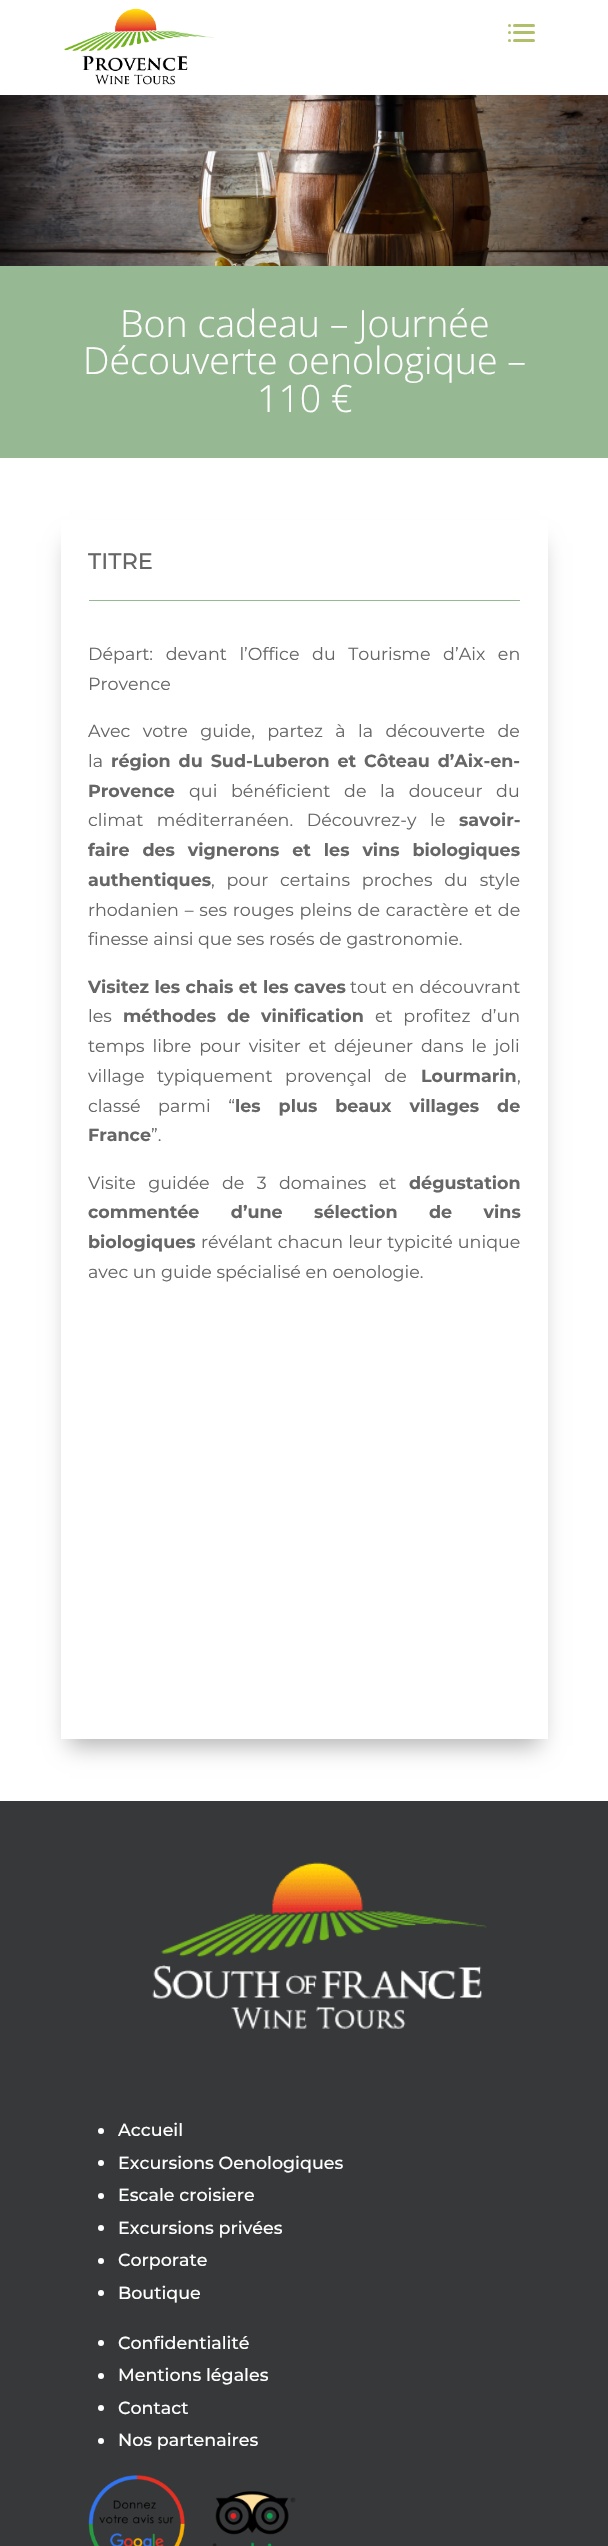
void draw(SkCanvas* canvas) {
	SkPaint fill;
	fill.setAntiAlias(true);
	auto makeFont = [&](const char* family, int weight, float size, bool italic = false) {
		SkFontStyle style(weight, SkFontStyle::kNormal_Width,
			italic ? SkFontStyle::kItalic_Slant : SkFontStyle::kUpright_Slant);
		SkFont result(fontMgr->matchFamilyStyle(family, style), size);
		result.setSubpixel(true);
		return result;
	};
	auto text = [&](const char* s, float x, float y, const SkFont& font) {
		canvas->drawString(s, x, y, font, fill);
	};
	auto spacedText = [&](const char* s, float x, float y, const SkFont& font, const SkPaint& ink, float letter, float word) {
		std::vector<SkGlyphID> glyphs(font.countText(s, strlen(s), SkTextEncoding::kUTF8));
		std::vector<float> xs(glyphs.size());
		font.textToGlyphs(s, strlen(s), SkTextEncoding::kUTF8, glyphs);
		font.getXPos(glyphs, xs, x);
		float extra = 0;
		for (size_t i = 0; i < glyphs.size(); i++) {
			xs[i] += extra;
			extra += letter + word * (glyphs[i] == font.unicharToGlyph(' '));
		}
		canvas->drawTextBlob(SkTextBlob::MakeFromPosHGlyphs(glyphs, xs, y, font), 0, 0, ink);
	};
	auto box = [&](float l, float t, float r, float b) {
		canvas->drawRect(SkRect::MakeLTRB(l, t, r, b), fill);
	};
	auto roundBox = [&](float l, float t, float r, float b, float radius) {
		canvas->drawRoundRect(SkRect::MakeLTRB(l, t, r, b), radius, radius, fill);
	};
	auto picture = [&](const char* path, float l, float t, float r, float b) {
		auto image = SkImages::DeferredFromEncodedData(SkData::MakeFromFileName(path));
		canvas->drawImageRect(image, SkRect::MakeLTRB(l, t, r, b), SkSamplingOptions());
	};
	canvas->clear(0xFFFFFFFF);
	picture("image0.png", 64, 8, 214, 85);
	fill.setColor(0xFFB0BF69);
	canvas->drawCircle(509.5f, 25.5f, 1.5f, fill);
	roundBox(513, 24, 535, 27, 1.5f);
	canvas->drawCircle(509.5f, 32.5f, 1.5f, fill);
	roundBox(513, 31, 535, 34, 1.5f);
	canvas->drawCircle(509.5f, 40.5f, 1.5f, fill);
	roundBox(513, 39, 535, 42, 1.5f);
	picture("image1.png", 0, 95, 608, 266);
	fill.setColor(0xFF96B892);
	box(0, 266, 608, 458);
	canvas->save();
	canvas->clipPath(SkPathBuilder(SkPathFillType::kEvenOdd).moveTo(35, 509).lineTo(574, 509).lineTo(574, 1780).lineTo(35, 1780).close().moveTo(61, 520).lineTo(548, 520).lineTo(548, 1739).lineTo(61, 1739).close().detach(), true);
	fill.setColor(0x4D000000);
	fill.setMaskFilter(SkMaskFilter::MakeBlur(kNormal_SkBlurStyle, 11));
	canvas->drawRect(SkRect::MakeLTRB(69, 543, 540, 1746), fill);
	fill.setMaskFilter(nullptr);
	canvas->restore();
	fill.setColor(0xFF96B892);
	box(89, 600, 520, 601);
	fill.setColor(0xFF363839);
	box(0, 1801, 608, 2546);
	picture("image2.png", 152, 1862, 487, 2029);
	fill.setColor(0xFFFFFFFF);
	canvas->drawCircle(101, 2131, 3, fill);
	canvas->drawCircle(101, 2163, 3, fill);
	canvas->drawCircle(101, 2196, 3, fill);
	canvas->drawCircle(101, 2228, 3, fill);
	canvas->drawCircle(101, 2261, 3, fill);
	canvas->drawCircle(101, 2293, 3, fill);
	canvas->drawCircle(101, 2343, 3, fill);
	canvas->drawCircle(101, 2376, 3, fill);
	canvas->drawCircle(101, 2408, 3, fill);
	canvas->drawCircle(101, 2441, 3, fill);
	picture("image3.png", 88, 2475, 185, 2546);
	picture("image4.png", 212, 2491, 296, 2546);
	auto font1 = makeFont("Open Sans", 300, 37.5f);
	text("Bon cadeau – Journée", 120, 337, font1);
	text("Découverte oenologique –", 83, 374, font1);
	text("110 €", 257, 412, font1);
	auto font2 = makeFont("Montserrat", 500, 22.5f);
	fill.setColor(0xFF666666);
	text("TITRE", 88, 569, font2);
	auto font3 = makeFont("Montserrat", 400, 17.5f);
	spacedText("Départ: devant l’Office du Tourisme d’Aix en", 88, 660, font3, fill, 0, 8);
	text("Provence", 88, 690, font3);
	spacedText("Avec votre guide, partez à la découverte de", 88, 737, font3, fill, 0, 7.75f);
	text("la", 88, 767, font3);
	auto font4 = makeFont("Montserrat", 700, 17.5f);
	spacedText("région du Sud-Luberon et Côteau d’Aix-en-", 111, 767, font4, fill, 0, 3);
	text("Provence", 88, 797, font4);
	spacedText("qui bénéficient de la douceur du", 189, 797, font3, fill, 0, 9);
	spacedText("climat méditerranéen. Découvrez-y le", 88, 826, font3, fill, 0, 9);
	text("savoir-", 459, 826, font4);
	spacedText("faire des vignerons et les vins biologiques", 88, 856, font4, fill, 0, 8);
	text("authentiques", 88, 886, font4);
	spacedText(", pour certains proches du style", 211, 886, font3, fill, 0, 7.25f);
	spacedText("rhodanien – ses rouges pleins de caractère et de", 88, 916, font3, fill, 0, 1.25f);
	text("finesse ainsi que ses rosés de gastronomie.", 88, 945, font3);
	spacedText("Visitez les chais et les caves", 88, 993, font4, fill, 0, 0.5f);
	spacedText("tout en découvrant", 350, 993, font3, fill, 0, 0.5f);
	text("les", 88, 1022, font3);
	spacedText("méthodes de vinification", 123, 1022, font4, fill, 0, 6);
	spacedText("et profitez d’un", 375, 1022, font3, fill, 0, 6);
	spacedText("temps libre pour visiter et déjeuner dans le joli", 88, 1052, font3, fill, 0, 3.25f);
	spacedText("village typiquement provençal de", 88, 1082, font3, fill, 0, 8);
	text("Lourmarin", 421, 1082, font4);
	text(",", 517, 1082, font3);
	spacedText("classé parmi “", 88, 1112, font3, fill, 0, 13);
	spacedText("les plus beaux villages de", 235, 1112, font4, fill, 0, 13);
	text("France", 88, 1141, font4);
	text("”.", 151, 1141, font3);
	spacedText("Visite guidée de 3 domaines et", 88, 1189, font3, fill, 0, 7.75f);
	text("dégustation", 409, 1189, font4);
	spacedText("commentée d’une sélection de vins", 88, 1218, font4, fill, 0, 26.5f);
	text("biologiques", 88, 1248, font4);
	spacedText("révélant chacun leur typicité unique", 201, 1248, font3, fill, 0, 0.5f);
	text("avec un guide spécialisé en oenologie.", 88, 1278, font3);
	auto font5 = makeFont("Montserrat", 500, 17.5f);
	fill.setColor(0xFFFFFFFF);
	text("Accueil", 118, 2136, font5);
	text("Excursions Oenologiques", 118, 2169, font5);
	text("Escale croisiere", 118, 2201, font5);
	text("Excursions privées", 118, 2234, font5);
	text("Corporate", 118, 2266, font5);
	text("Boutique", 118, 2299, font5);
	text("Confidentialité", 118, 2349, font5);
	text("Mentions légales", 118, 2381, font5);
	text("Contact", 118, 2414, font5);
	text("Nos partenaires", 118, 2446, font5);
}
